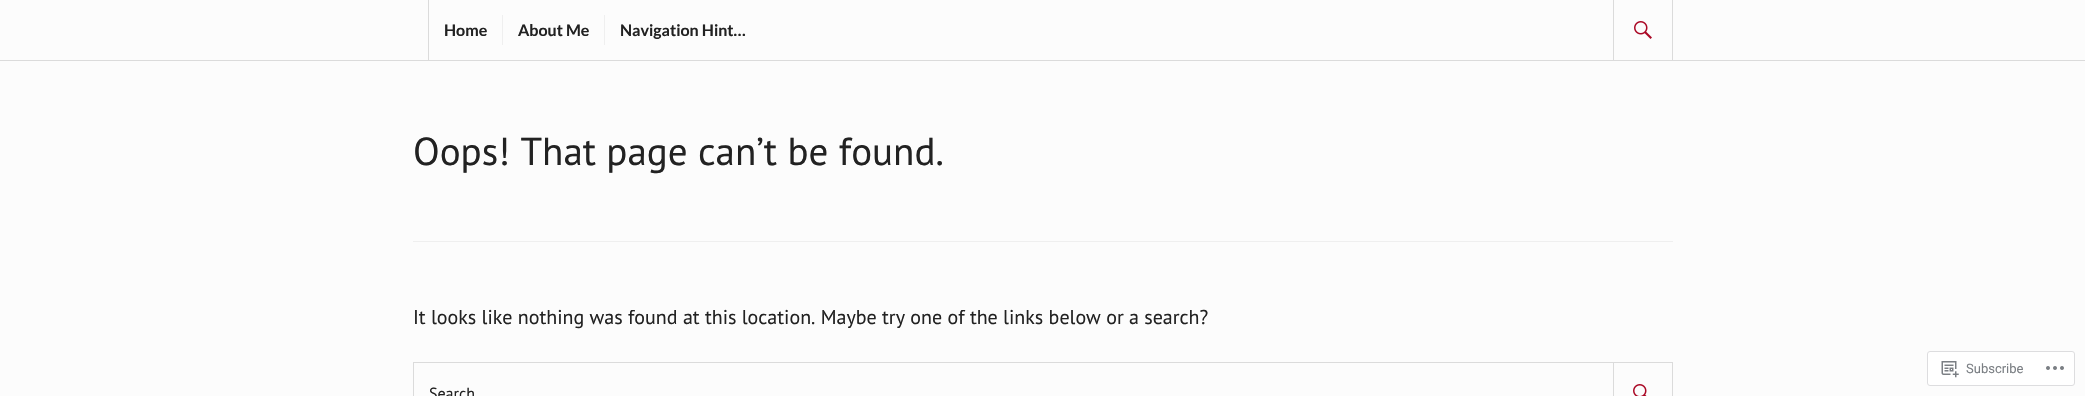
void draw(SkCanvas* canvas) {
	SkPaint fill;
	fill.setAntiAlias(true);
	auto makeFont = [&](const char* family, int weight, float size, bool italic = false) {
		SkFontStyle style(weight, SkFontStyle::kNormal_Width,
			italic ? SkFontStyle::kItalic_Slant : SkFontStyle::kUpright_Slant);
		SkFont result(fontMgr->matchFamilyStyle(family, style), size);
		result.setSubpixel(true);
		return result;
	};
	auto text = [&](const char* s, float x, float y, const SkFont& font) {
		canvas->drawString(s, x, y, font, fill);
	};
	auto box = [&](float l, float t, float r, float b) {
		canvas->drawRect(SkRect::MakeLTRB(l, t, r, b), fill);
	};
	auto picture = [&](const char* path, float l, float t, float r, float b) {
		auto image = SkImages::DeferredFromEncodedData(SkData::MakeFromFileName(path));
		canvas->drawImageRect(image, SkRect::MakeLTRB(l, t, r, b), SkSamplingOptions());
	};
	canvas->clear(0xFFFCFCFC);
	fill.setColor(0xFFDBDBDB);
	box(0, 60, 2085, 61);
	box(428, 0, 429, 60);
	fill.setColor(0xFFEFEFEF);
	box(502, 15, 503, 45);
	box(604, 15, 605, 45);
	fill.setStyle(SkPaint::kStroke_Style);
	fill.setStrokeWidth(1);
	fill.setColor(0xFFDBDBDB);
	canvas->drawRect(SkRect::MakeLTRB(1613.5f, -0.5f, 1672.5f, 60.5f), fill);
	picture("image0.png", 1634, 21, 1652, 39);
	fill.setStyle(SkPaint::kFill_Style);
	fill.setColor(0xFFEFEFEF);
	box(413, 241, 1673, 242);
	fill.setColor(0xFFDBDBDB);
	canvas->drawPath(SkPathBuilder().moveTo(413, 362).lineTo(1673, 362).lineTo(1613, 363).lineTo(414, 363).close().detach(), fill);
	picture("image1.png", 1633, 384, 1647, 396);
	fill.setStyle(SkPaint::kStroke_Style);
	canvas->drawRect(SkRect::MakeLTRB(1613.5f, 362.5f, 1672.5f, 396.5f), fill);
	fill.setStyle(SkPaint::kFill_Style);
	box(413, 362, 414, 396);
	fill.setColor(0xFFFFFFFF);
	canvas->drawRoundRect(SkRect::MakeLTRB(1927.5f, 351.5f, 2074.5f, 385.5f), 2.5f, 2.5f, fill);
	fill.setStyle(SkPaint::kStroke_Style);
	fill.setColor(0xFFDDDDDF);
	canvas->drawRoundRect(SkRect::MakeLTRB(1927.5f, 351.5f, 2074.5f, 385.5f), 2.5f, 2.5f, fill);
	picture("image2.png", 1941, 361, 1959, 378);
	picture("image3.png", 2046, 366, 2064, 370);
	auto font1 = makeFont("Lato", 700, 16);
	fill.setStyle(SkPaint::kFill_Style);
	fill.setColor(0xFF222222);
	text("Home", 444, 36, font1);
	text("About Me", 518, 36, font1);
	text("Navigation Hint…", 620, 36, font1);
	auto font2 = makeFont("PT Sans", 400, 39);
	text("Oops! That page can’t be found.", 413, 165, font2);
	auto font3 = makeFont("PT Sans", 400, 20);
	text("It looks like nothing was found at this location. Maybe try one of the links below or a search?", 413, 324, font3);
	auto font4 = makeFont("PT Sans", 400, 16);
	text("Search", 429, 399, font4);
	auto font5 = makeFont("Roboto", 400, 13);
	fill.setColor(0xFF7B7F84);
	text("Subscribe", 1966, 373, font5);
}
